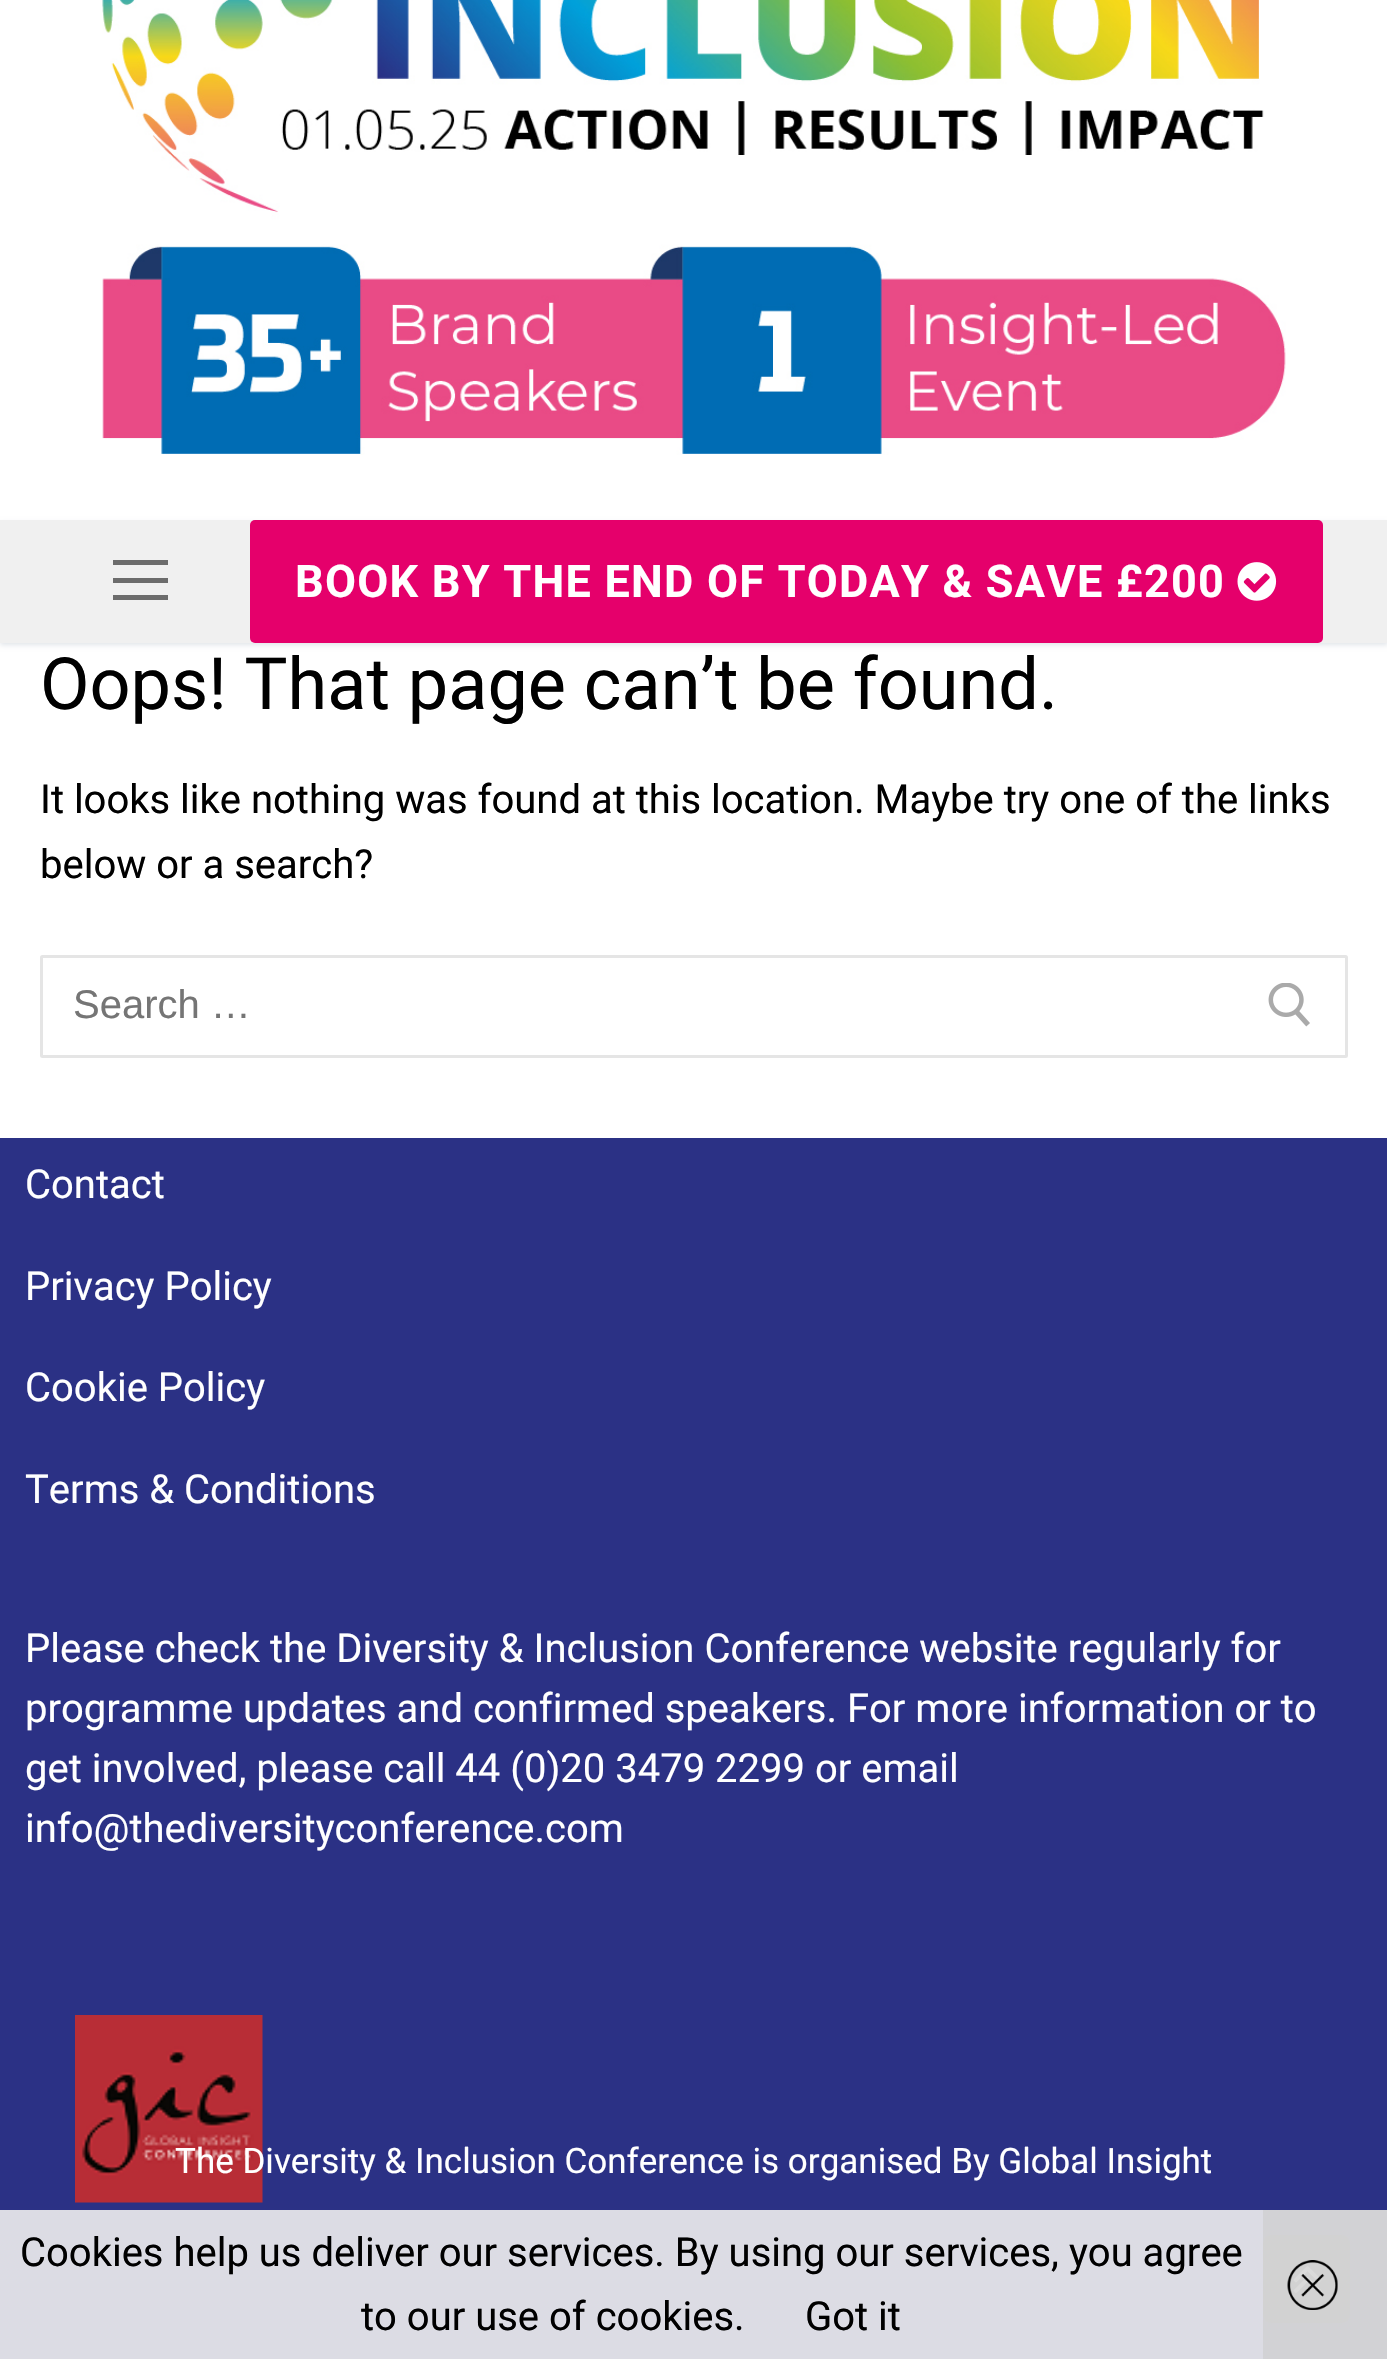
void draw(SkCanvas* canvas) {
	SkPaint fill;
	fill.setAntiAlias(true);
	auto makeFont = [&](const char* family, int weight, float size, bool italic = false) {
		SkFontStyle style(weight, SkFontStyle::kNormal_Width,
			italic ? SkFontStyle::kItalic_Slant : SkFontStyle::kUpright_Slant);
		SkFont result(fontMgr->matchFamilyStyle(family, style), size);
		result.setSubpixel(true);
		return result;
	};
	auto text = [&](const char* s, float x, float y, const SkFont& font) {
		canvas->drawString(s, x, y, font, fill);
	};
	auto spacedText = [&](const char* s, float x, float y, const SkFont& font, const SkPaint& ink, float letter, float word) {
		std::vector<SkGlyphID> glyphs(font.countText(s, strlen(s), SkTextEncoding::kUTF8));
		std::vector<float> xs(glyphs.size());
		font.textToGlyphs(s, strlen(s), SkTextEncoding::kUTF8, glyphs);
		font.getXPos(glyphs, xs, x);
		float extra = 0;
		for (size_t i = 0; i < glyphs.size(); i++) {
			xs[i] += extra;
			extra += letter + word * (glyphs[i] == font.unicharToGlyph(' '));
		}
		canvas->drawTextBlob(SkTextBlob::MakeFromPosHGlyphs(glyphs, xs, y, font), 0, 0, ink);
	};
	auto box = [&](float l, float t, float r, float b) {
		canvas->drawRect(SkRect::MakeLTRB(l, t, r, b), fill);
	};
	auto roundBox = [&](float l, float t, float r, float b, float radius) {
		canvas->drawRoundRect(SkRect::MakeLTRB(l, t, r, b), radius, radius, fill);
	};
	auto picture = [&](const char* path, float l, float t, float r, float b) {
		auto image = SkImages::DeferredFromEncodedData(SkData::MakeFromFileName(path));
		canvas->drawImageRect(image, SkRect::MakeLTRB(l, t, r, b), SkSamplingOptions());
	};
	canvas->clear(0xFFFFFFFF);
	picture("image0.png", 102, 0, 1286, 455);
	fill.setColor(0xFFE1E5EA);
	fill.setMaskFilter(SkMaskFilter::MakeBlur(kNormal_SkBlurStyle, 2.5f));
	canvas->drawRect(SkRect::MakeLTRB(0, 523, 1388, 645), fill);
	fill.setMaskFilter(nullptr);
	fill.setColor(0xFFF0F0F0);
	box(0, 520, 1387, 643);
	fill.setColor(0xFF6C6C6C);
	box(113, 578, 168, 583);
	box(113, 560, 168, 565);
	box(113, 595, 168, 600);
	fill.setColor(0xFFE5006B);
	roundBox(250, 520, 1323, 643, 5);
	picture("image1.png", 1237, 562, 1277, 601);
	fill.setStyle(SkPaint::kStroke_Style);
	fill.setStrokeWidth(3);
	fill.setColor(0xFFE5E5E5);
	canvas->drawRoundRect(SkRect::MakeLTRB(41.5f, 956.5f, 1346.5f, 1056.5f), 1, 1, fill);
	picture("image2.png", 1268, 983, 1310, 1027);
	fill.setStyle(SkPaint::kFill_Style);
	fill.setColor(0xFF2B3185);
	box(0, 1138, 1387, 2359);
	picture("image3.png", 75, 2015, 263, 2203);
	fill.setColor(0xFF333333);
	roundBox(1263, 2235, 1350, 2323, 8);
	picture("image5.png", 1293, 2266, 1322, 2293);
	fill.setColor(0xE6EEEEEE);
	box(0, 2210, 1387, 2359);
	fill.setColor(0x99CCCCCC);
	box(1263, 2210, 1387, 2359);
	picture("image4.png", 1287, 2260, 1338, 2310);
	auto font1 = makeFont("Roboto", 700, 45);
	fill.setColor(0xFFFFFFFF);
	spacedText("BOOK BY THE END OF TODAY & SAVE £200", 295, 597, font1, fill, 1.25f, 0);
	auto font2 = makeFont("Roboto", 400, 72);
	fill.setColor(0xFF000000);
	text("Oops! That page can’t be found.", 40, 709, font2);
	auto font3 = makeFont("Roboto", 400, 40);
	text("It looks like nothing was found at this location. Maybe try one of the links", 40, 813, font3);
	text("below or a search?", 40, 878, font3);
	auto font4 = makeFont("Liberation Sans", 400, 40);
	fill.setColor(0xFF757575);
	text("Search …", 73, 1018, font4);
	fill.setColor(0xFFFFFFFF);
	text("Contact", 25, 1198, font3);
	text("Privacy Policy", 25, 1300, font3);
	text("Cookie Policy", 25, 1401, font3);
	text("Terms & Conditions", 25, 1503, font3);
	text("Please check the Diversity & Inclusion Conference website regularly for", 25, 1662, font3);
	text("programme updates and confirmed speakers. For more information or to", 25, 1722, font3);
	text("get involved, please call 44 (0)20 3479 2299 or email", 25, 1782, font3);
	text("info@thediversityconference.com", 25, 1842, font3);
	auto font5 = makeFont("Roboto", 400, 35);
	text("The Diversity & Inclusion Conference is organised By Global Insight", 175, 2173, font5);
	fill.setColor(0xFF000000);
	text("Cookies help us deliver our services. By using our services, you agree", 20, 2266, font3);
	text("to our use of cookies.", 361, 2330, font3);
	text("Got it", 805, 2330, font3);
}
